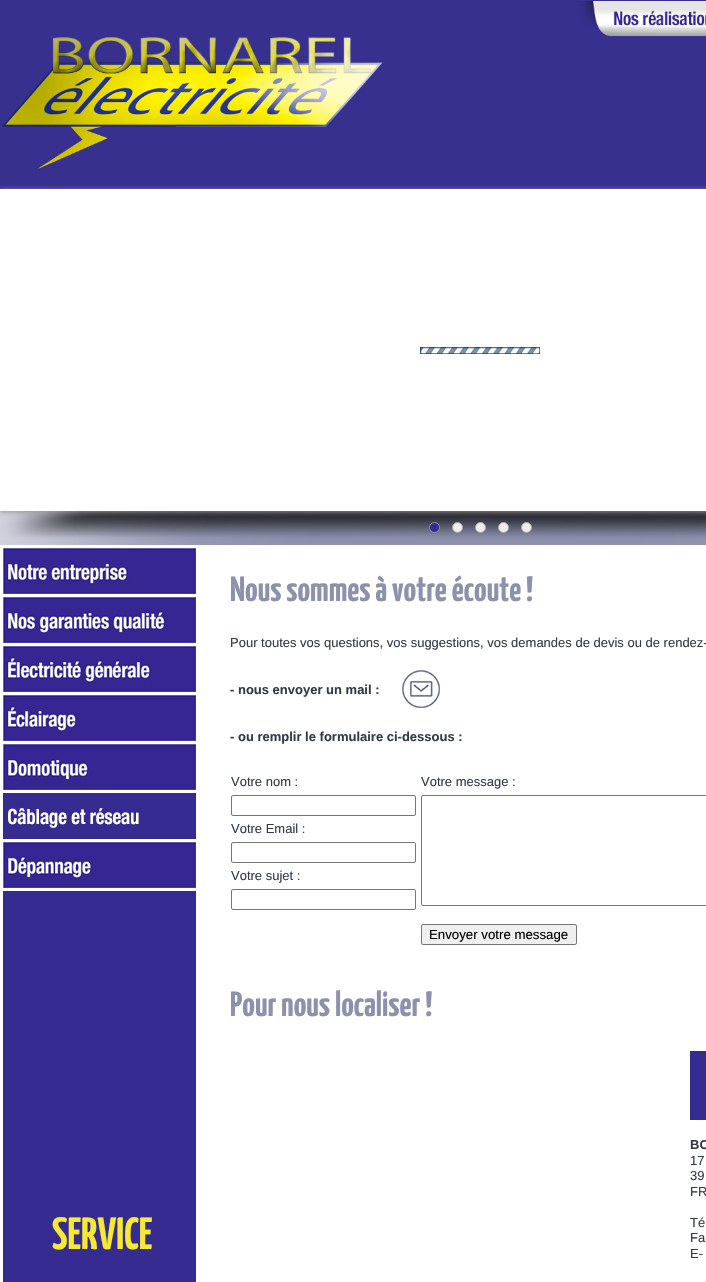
void draw(SkCanvas* canvas) {
	SkPaint fill;
	fill.setAntiAlias(true);
	auto makeFont = [&](const char* family, int weight, float size, bool italic = false) {
		SkFontStyle style(weight, SkFontStyle::kNormal_Width,
			italic ? SkFontStyle::kItalic_Slant : SkFontStyle::kUpright_Slant);
		SkFont result(fontMgr->matchFamilyStyle(family, style), size);
		result.setSubpixel(true);
		return result;
	};
	auto text = [&](const char* s, float x, float y, const SkFont& font) {
		canvas->drawString(s, x, y, font, fill);
	};
	auto box = [&](float l, float t, float r, float b) {
		canvas->drawRect(SkRect::MakeLTRB(l, t, r, b), fill);
	};
	auto picture = [&](const char* path, float l, float t, float r, float b) {
		auto image = SkImages::DeferredFromEncodedData(SkData::MakeFromFileName(path));
		canvas->drawImageRect(image, SkRect::MakeLTRB(l, t, r, b), SkSamplingOptions());
	};
	canvas->clear(0xFFFFFFFF);
	picture("image0.png", 0, 0, 706, 545);
	picture("image1.png", 575, 1, 706, 37);
	picture("image2.png", 1, 37, 383, 170);
	fill.setColor(0xFF999999);
	fill.setMaskFilter(SkMaskFilter::MakeBlur(kNormal_SkBlurStyle, 2.5f));
	canvas->drawRect(SkRect::MakeLTRB(0, 190, 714, 512), fill);
	fill.setMaskFilter(nullptr);
	fill.setColor(0xFFFFFFFF);
	box(0, 189, 706, 511);
	picture("image3.png", 420, 347, 540, 354);
	fill.setColor(0xFF352B90);
	canvas->drawCircle(434.5f, 527.5f, 5, fill);
	fill.setStyle(SkPaint::kStroke_Style);
	fill.setStrokeWidth(1);
	fill.setColor(0xFF8C91AC);
	canvas->drawCircle(434.5f, 527.5f, 5, fill);
	fill.setStyle(SkPaint::kFill_Style);
	fill.setColor(0xFFEEEEEE);
	canvas->drawCircle(457.5f, 527.5f, 5, fill);
	fill.setStyle(SkPaint::kStroke_Style);
	fill.setColor(0xFFAAAAAA);
	canvas->drawCircle(457.5f, 527.5f, 5, fill);
	fill.setStyle(SkPaint::kFill_Style);
	fill.setColor(0xFFEEEEEE);
	canvas->drawCircle(480.5f, 527.5f, 5, fill);
	fill.setStyle(SkPaint::kStroke_Style);
	fill.setColor(0xFFAAAAAA);
	canvas->drawCircle(480.5f, 527.5f, 5, fill);
	fill.setStyle(SkPaint::kFill_Style);
	fill.setColor(0xFFEEEEEE);
	canvas->drawCircle(503.5f, 527.5f, 5, fill);
	fill.setStyle(SkPaint::kStroke_Style);
	fill.setColor(0xFFAAAAAA);
	canvas->drawCircle(503.5f, 527.5f, 5, fill);
	fill.setStyle(SkPaint::kFill_Style);
	fill.setColor(0xFFEEEEEE);
	canvas->drawCircle(526.5f, 527.5f, 5, fill);
	fill.setStyle(SkPaint::kStroke_Style);
	fill.setColor(0xFFAAAAAA);
	canvas->drawCircle(526.5f, 527.5f, 5, fill);
	picture("image4.png", 3, 548, 196, 594);
	picture("image5.png", 3, 597, 196, 643);
	picture("image6.png", 3, 646, 196, 692);
	picture("image7.png", 3, 695, 196, 741);
	picture("image8.png", 3, 744, 196, 790);
	picture("image9.png", 3, 793, 196, 839);
	picture("image10.png", 3, 842, 196, 888);
	fill.setStyle(SkPaint::kFill_Style);
	fill.setColor(0xFF352B90);
	box(3, 891, 196, 1282);
	picture("image11.png", 401, 670, 440, 708);
	fill.setStyle(SkPaint::kStroke_Style);
	fill.setColor(0xFF767676);
	canvas->drawRoundRect(SkRect::MakeLTRB(231.5f, 795.5f, 415.5f, 815.5f), 1.5f, 1.5f, fill);
	canvas->drawRoundRect(SkRect::MakeLTRB(231.5f, 842.5f, 415.5f, 862.5f), 1.5f, 1.5f, fill);
	canvas->drawRoundRect(SkRect::MakeLTRB(231.5f, 889.5f, 415.5f, 909.5f), 1.5f, 1.5f, fill);
	canvas->drawRoundRect(SkRect::MakeLTRB(421.5f, 795.5f, 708.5f, 905.5f), 1.5f, 1.5f, fill);
	fill.setStyle(SkPaint::kFill_Style);
	fill.setColor(0xFFEFEFEF);
	canvas->drawRoundRect(SkRect::MakeLTRB(421.5f, 924.5f, 576.5f, 944.5f), 1.5f, 1.5f, fill);
	fill.setStyle(SkPaint::kStroke_Style);
	fill.setColor(0xFF767676);
	canvas->drawRoundRect(SkRect::MakeLTRB(421.5f, 924.5f, 576.5f, 944.5f), 1.5f, 1.5f, fill);
	fill.setStyle(SkPaint::kFill_Style);
	fill.setColor(0xFF352B90);
	box(690, 1051, 706, 1120);
	auto font1 = makeFont("Yanone Kaffeesatz", 700, 45);
	fill.setColor(0xFFF6EA31);
	text("SERVICE", 52, 1249, font1);
	auto font2 = makeFont("Yanone Kaffeesatz", 700, 35);
	fill.setColor(0xFF8C91AC);
	text("Nous sommes à votre écoute !", 230, 601, font2);
	auto font3 = makeFont("Liberation Sans", 400, 13);
	fill.setColor(0xFF333B4B);
	text("Pour toutes vos questions, vos suggestions, vos demandes de devis ou de rendez-", 230, 647, font3);
	auto font4 = makeFont("Liberation Sans", 700, 13);
	text("- nous envoyer un mail :", 230, 694, font4);
	text("- ou remplir le formulaire ci-dessous :", 230, 741, font4);
	text("Votre nom :", 231, 786, font3);
	text("Votre Email :", 231, 833, font3);
	text("Votre sujet :", 231, 880, font3);
	text("Votre message :", 421, 786, font3);
	auto font5 = makeFont("Liberation Sans", 400, 13.25f);
	fill.setColor(0xFF000000);
	text("Envoyer votre message", 429, 939, font5);
	fill.setColor(0xFF8C91AC);
	text("Pour nous localiser !", 230, 1016, font2);
	fill.setColor(0xFF333B4B);
	text("BO", 690, 1149, font4);
	text("17", 690, 1165, font3);
	text("39", 690, 1180, font3);
	text("FR", 690, 1196, font3);
	text("Té", 690, 1227, font3);
	text("Fa", 690, 1242, font3);
	text("E-", 690, 1258, font3);
}
